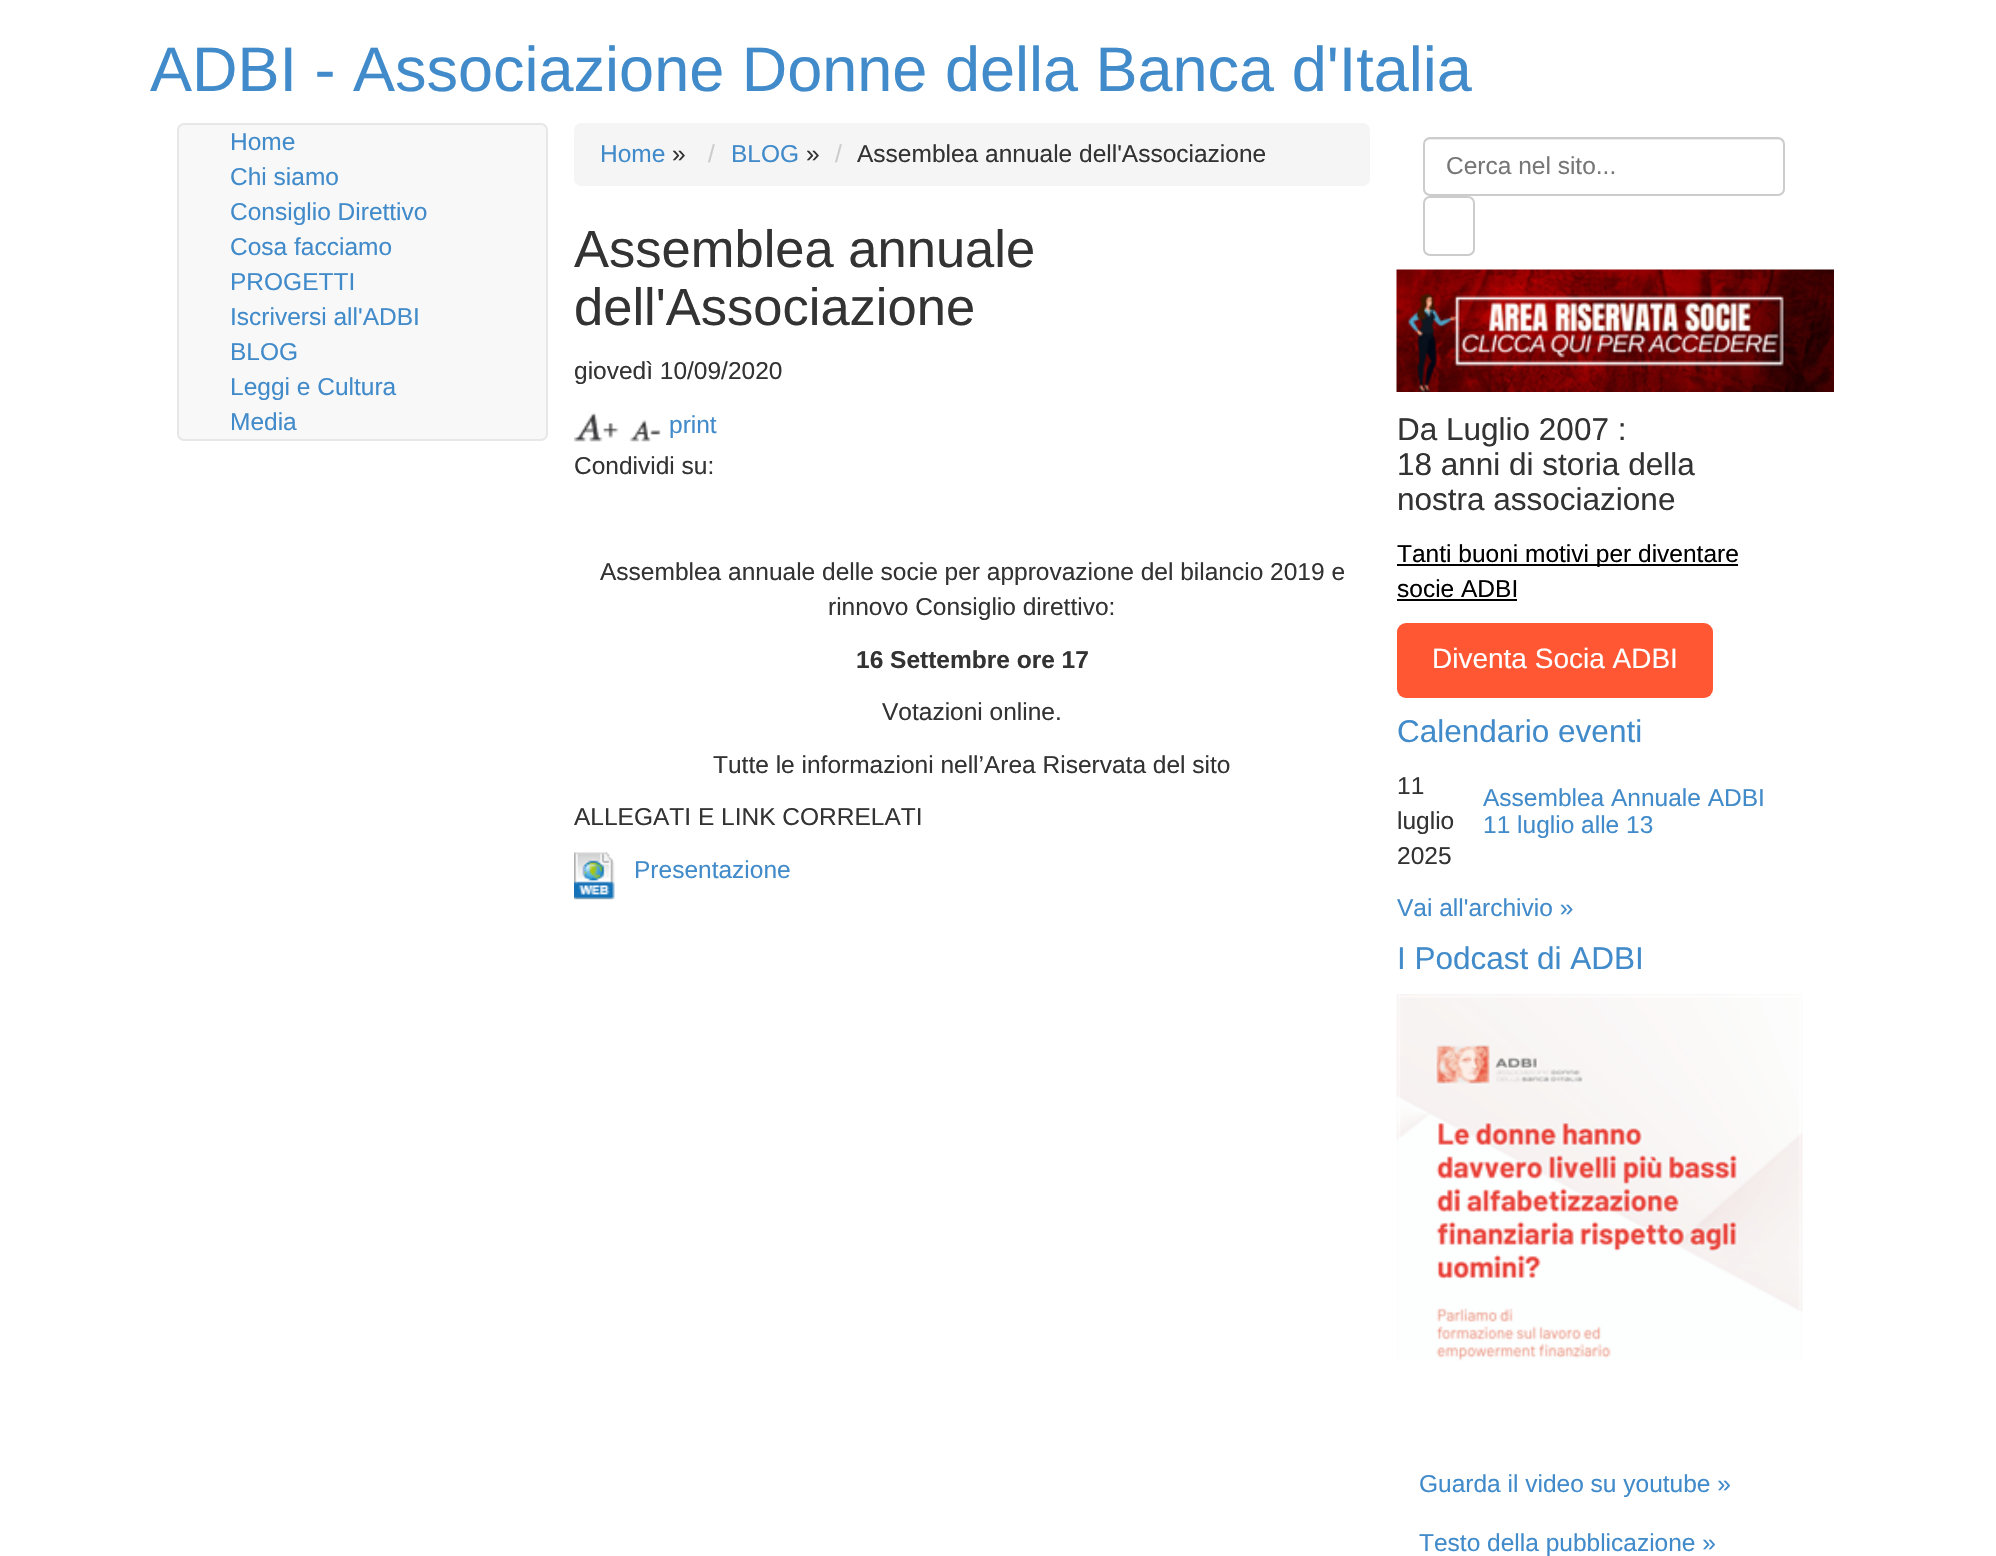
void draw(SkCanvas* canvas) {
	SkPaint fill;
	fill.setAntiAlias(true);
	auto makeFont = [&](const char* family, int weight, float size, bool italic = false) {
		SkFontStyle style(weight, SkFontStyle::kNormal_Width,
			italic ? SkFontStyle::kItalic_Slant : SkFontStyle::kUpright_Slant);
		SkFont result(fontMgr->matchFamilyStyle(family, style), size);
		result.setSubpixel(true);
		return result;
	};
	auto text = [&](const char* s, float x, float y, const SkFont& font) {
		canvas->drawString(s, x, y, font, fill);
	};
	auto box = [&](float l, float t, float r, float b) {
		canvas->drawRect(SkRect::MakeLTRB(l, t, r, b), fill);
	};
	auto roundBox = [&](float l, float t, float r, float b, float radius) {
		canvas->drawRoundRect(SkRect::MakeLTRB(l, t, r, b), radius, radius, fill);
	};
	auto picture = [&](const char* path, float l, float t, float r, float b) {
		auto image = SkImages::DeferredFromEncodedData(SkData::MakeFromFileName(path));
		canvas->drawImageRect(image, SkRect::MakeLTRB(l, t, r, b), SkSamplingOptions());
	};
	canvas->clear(0xFFFFFFFF);
	fill.setColor(0xFFF8F8F8);
	canvas->drawRoundRect(SkRect::MakeLTRB(178, 124, 547, 440), 6, 6, fill);
	fill.setStyle(SkPaint::kStroke_Style);
	fill.setStrokeWidth(2);
	fill.setColor(0xFFE7E7E7);
	canvas->drawRoundRect(SkRect::MakeLTRB(178, 124, 547, 440), 6, 6, fill);
	fill.setStyle(SkPaint::kFill_Style);
	fill.setColor(0xFFF5F5F5);
	roundBox(574, 123, 1370, 186, 7);
	picture("image0.png", 574, 412, 619, 442);
	picture("image1.png", 629, 419, 661, 442);
	picture("image2.png", 574, 852, 615, 900);
	fill.setColor(0xFFECECEC);
	canvas->drawPath(SkPathBuilder().moveTo(1430, 140).lineTo(1778, 140).cubicTo(1781, 140, 1783, 142, 1783, 145).cubicTo(1783, 142, 1782, 138, 1778, 138).lineTo(1430, 138).cubicTo(1428, 138, 1425, 140, 1425, 142).cubicTo(1426, 141, 1428, 140, 1430, 140).close().detach(), fill);
	fill.setStyle(SkPaint::kStroke_Style);
	fill.setColor(0xFFCCCCCC);
	canvas->drawRoundRect(SkRect::MakeLTRB(1424, 138, 1784, 195), 6, 6, fill);
	canvas->drawRoundRect(SkRect::MakeLTRB(1424, 197, 1474, 255), 6, 6, fill);
	picture("image3.png", 1396, 269, 1834, 392);
	fill.setStyle(SkPaint::kFill_Style);
	fill.setColor(0xFF000000);
	box(1397, 564, 1738, 566);
	box(1397, 599, 1517, 601);
	fill.setColor(0xFFFF5733);
	roundBox(1397, 623, 1713, 698, 9);
	picture("image4.png", 1396, 994, 1803, 1361);
	auto font1 = makeFont("Liberation Sans", 400, 63);
	fill.setColor(0xFF428BCA);
	text("ADBI - Associazione Donne della Banca d'Italia", 150, 91, font1);
	auto font2 = makeFont("Liberation Sans", 400, 24.5f);
	text("Home", 230, 150, font2);
	text("Chi siamo", 230, 185, font2);
	text("Consiglio Direttivo", 230, 220, font2);
	text("Cosa facciamo", 230, 255, font2);
	text("PROGETTI", 230, 290, font2);
	text("Iscriversi all'ADBI", 230, 325, font2);
	text("BLOG", 230, 360, font2);
	text("Leggi e Cultura", 230, 395, font2);
	text("Media", 230, 430, font2);
	text("Home", 600, 162, font2);
	fill.setColor(0xFF333333);
	text("»", 672, 162, font2);
	fill.setColor(0xFFCCCCCC);
	text("/", 708, 162, font2);
	fill.setColor(0xFF428BCA);
	text("BLOG", 731, 162, font2);
	fill.setColor(0xFF333333);
	text("»", 806, 162, font2);
	fill.setColor(0xFFCCCCCC);
	text("/", 835, 162, font2);
	fill.setColor(0xFF333333);
	text("Assemblea annuale dell'Associazione", 857, 162, font2);
	auto font3 = makeFont("Liberation Sans", 400, 52.5f);
	text("Assemblea annuale", 574, 267, font3);
	text("dell'Associazione", 574, 325, font3);
	text("giovedì 10/09/2020", 574, 379, font2);
	fill.setColor(0xFF428BCA);
	text("print", 669, 433, font2);
	fill.setColor(0xFF333333);
	text("Condividi su:", 574, 474, font2);
	text("Assemblea annuale delle socie per approvazione del bilancio 2019 e", 600, 580, font2);
	text("rinnovo Consiglio direttivo:", 828, 615, font2);
	auto font4 = makeFont("Liberation Sans", 700, 24.5f);
	text("16 Settembre ore 17", 856, 668, font4);
	text("Votazioni online.", 882, 720, font2);
	text("Tutte le informazioni nell’Area Riservata del sito", 713, 773, font2);
	text("ALLEGATI E LINK CORRELATI", 574, 825, font2);
	fill.setColor(0xFF428BCA);
	text("Presentazione", 634, 878, font2);
	fill.setColor(0xFF777777);
	text("Cerca nel sito...", 1446, 174, font2);
	auto font5 = makeFont("Liberation Sans", 400, 31.5f);
	fill.setColor(0xFF333333);
	text("Da Luglio 2007 :", 1397, 440, font5);
	text("18 anni di storia della", 1397, 475, font5);
	text("nostra associazione", 1397, 510, font5);
	fill.setColor(0xFF000000);
	text("Tanti buoni motivi per diventare", 1397, 562, font2);
	text("socie ADBI", 1397, 597, font2);
	auto font6 = makeFont("Liberation Sans", 400, 28);
	fill.setColor(0xFFFFFFFF);
	text("Diventa Socia ADBI", 1432, 668, font6);
	fill.setColor(0xFF428BCA);
	text("Calendario eventi", 1397, 742, font5);
	fill.setColor(0xFF333333);
	text("11", 1397, 794, font2);
	text("luglio", 1397, 829, font2);
	text("2025", 1397, 864, font2);
	fill.setColor(0xFF428BCA);
	text("Assemblea Annuale ADBI", 1483, 806, font2);
	text("11 luglio alle 13", 1483, 833, font2);
	text("Vai all'archivio »", 1397, 916, font2);
	text("I Podcast di ADBI", 1397, 969, font5);
	text("Guarda il video su youtube »", 1419, 1492, font2);
	text("Testo della pubblicazione »", 1419, 1551, font2);
}
